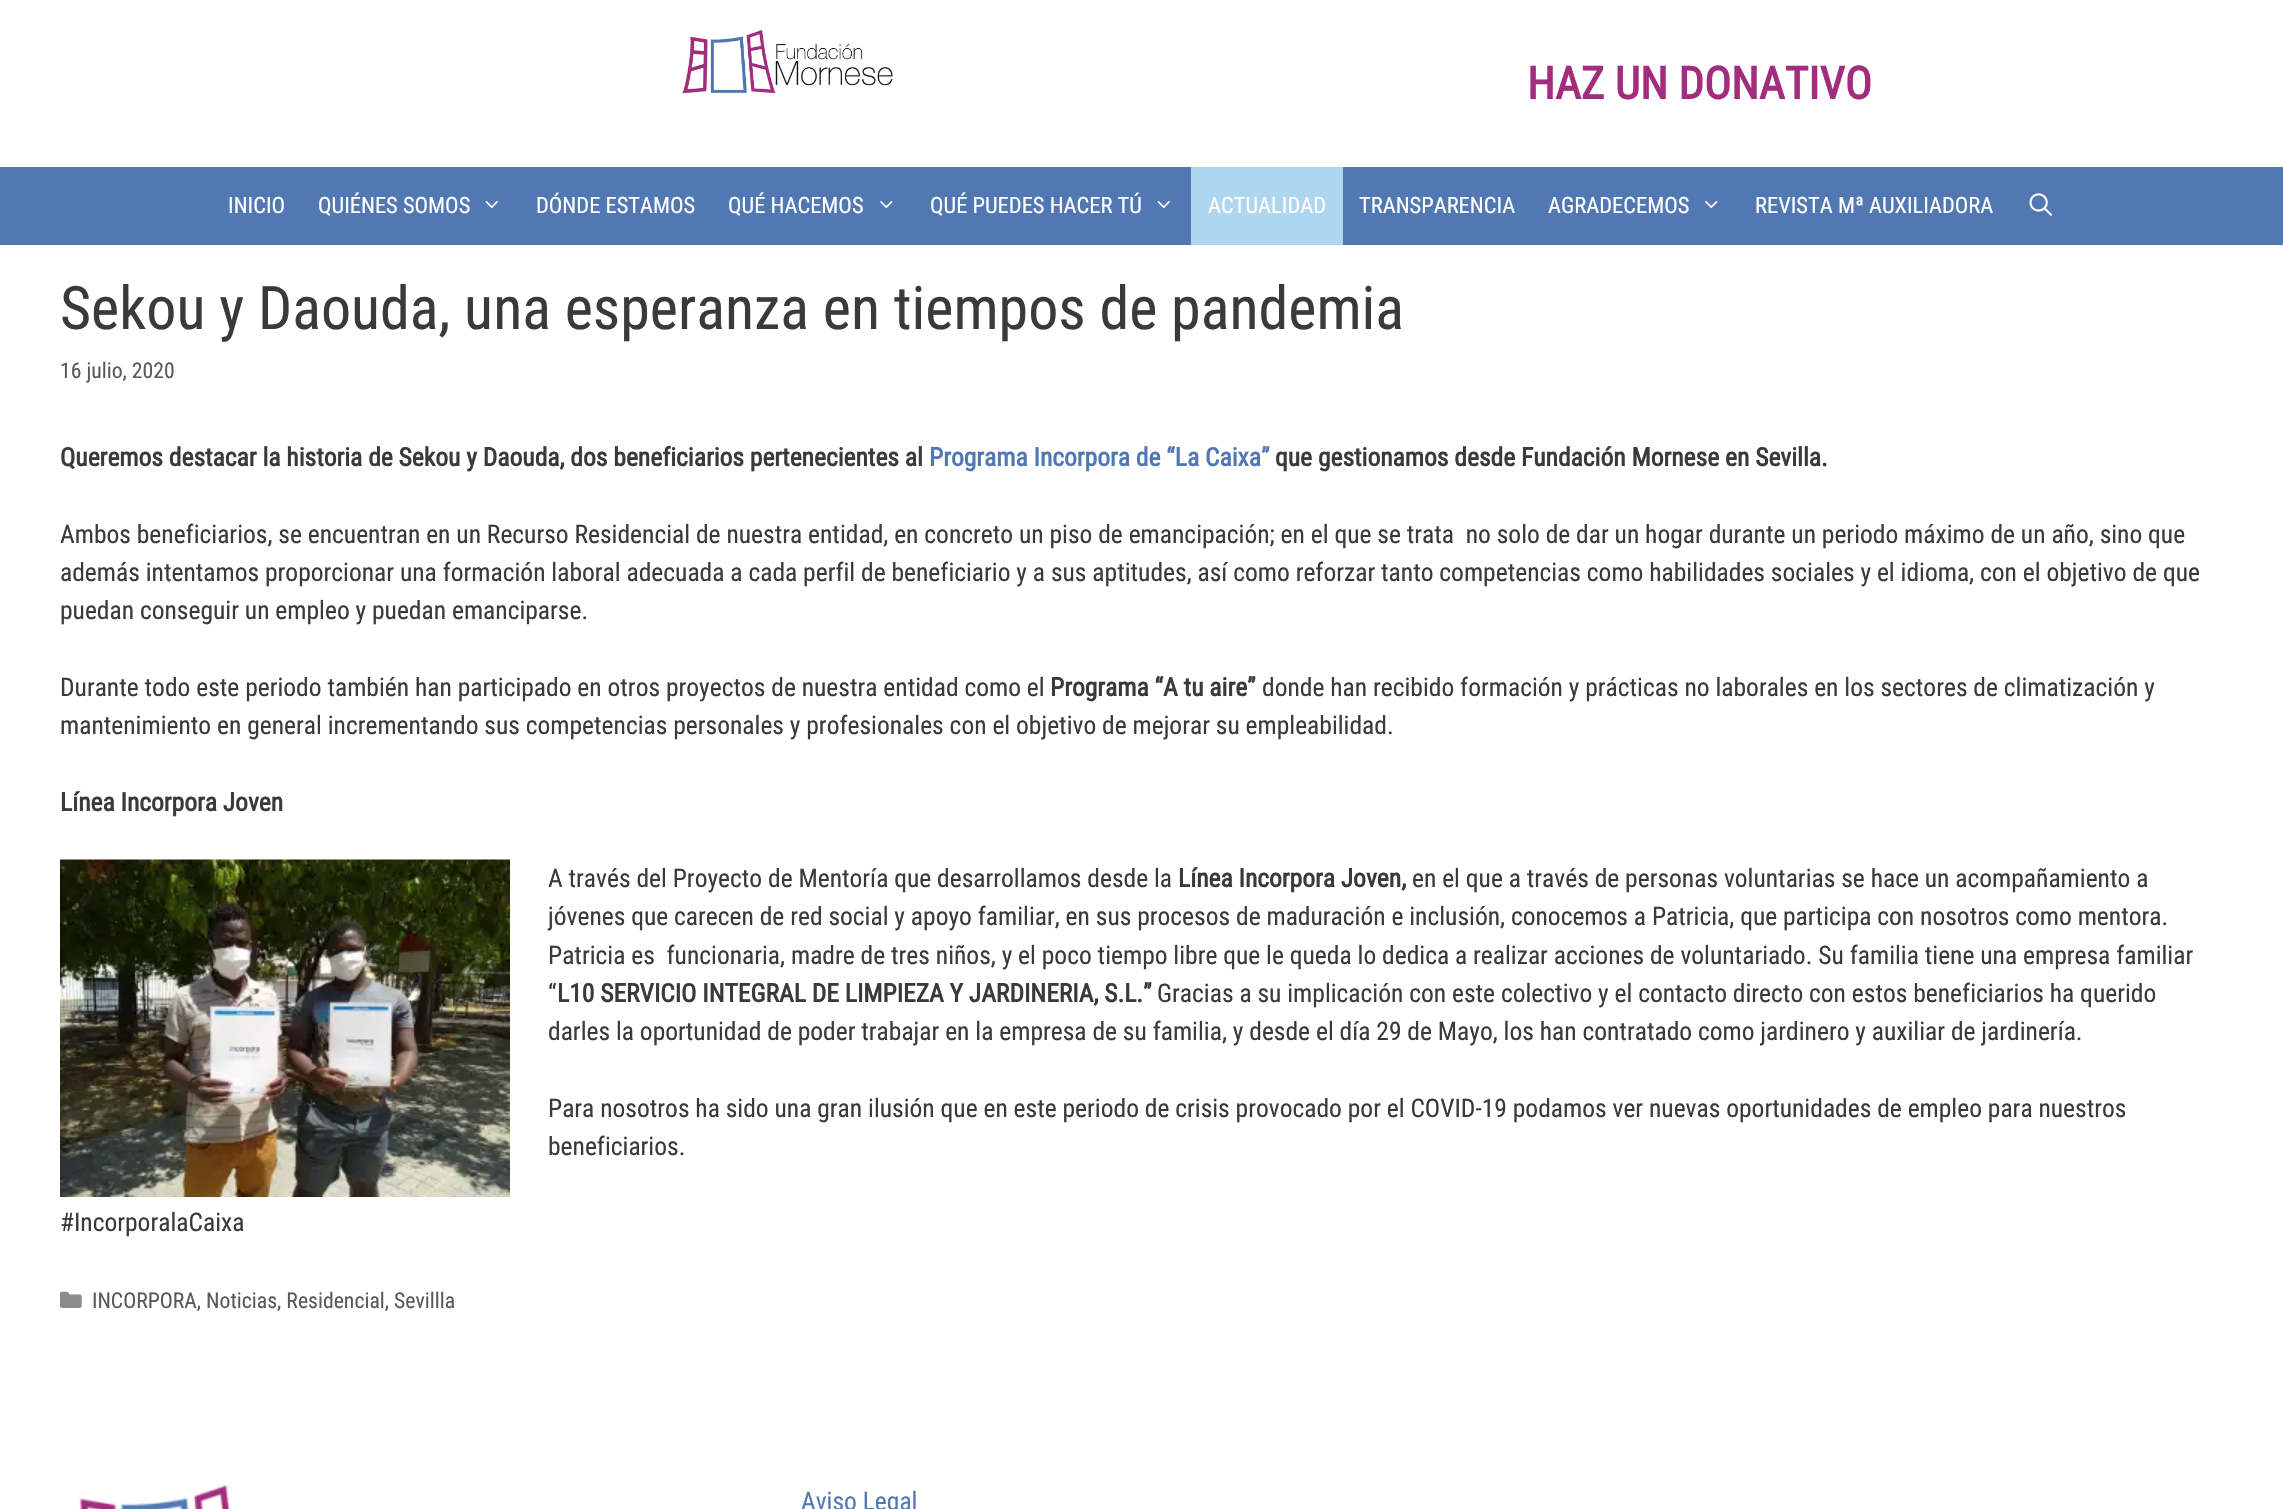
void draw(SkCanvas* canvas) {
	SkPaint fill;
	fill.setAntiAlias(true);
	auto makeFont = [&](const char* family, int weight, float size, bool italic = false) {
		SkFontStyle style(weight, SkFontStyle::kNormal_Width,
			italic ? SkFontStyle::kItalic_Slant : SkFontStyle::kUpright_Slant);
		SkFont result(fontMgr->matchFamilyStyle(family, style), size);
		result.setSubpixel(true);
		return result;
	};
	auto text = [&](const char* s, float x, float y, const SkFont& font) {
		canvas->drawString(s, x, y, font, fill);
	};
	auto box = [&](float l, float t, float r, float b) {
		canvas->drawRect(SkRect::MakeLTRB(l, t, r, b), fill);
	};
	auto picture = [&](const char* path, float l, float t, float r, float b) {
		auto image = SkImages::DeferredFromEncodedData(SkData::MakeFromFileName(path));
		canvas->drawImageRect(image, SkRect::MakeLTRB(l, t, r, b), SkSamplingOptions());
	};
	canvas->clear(0xFFFFFFFF);
	picture("image0.png", 682, 30, 893, 94);
	fill.setColor(0xFF5278B4);
	box(0, 167, 2283, 245);
	picture("image1.png", 485, 201, 498, 209);
	picture("image2.png", 880, 201, 893, 209);
	picture("image1.png", 1157, 201, 1170, 209);
	fill.setColor(0xFFAFD6EF);
	box(1191, 167, 1343, 245);
	picture("image2.png", 1705, 201, 1718, 209);
	picture("image3.png", 2029, 193, 2052, 216);
	picture("image4.png", 60, 859, 510, 1197);
	picture("image5.png", 60, 1291, 82, 1308);
	picture("image6.png", 79, 1484, 230, 1509);
	auto font1 = makeFont("Roboto Condensed", 700, 45);
	fill.setColor(0xFFA32D7D);
	text("HAZ UN DONATIVO", 1527, 99, font1);
	auto font2 = makeFont("Roboto Condensed", 400, 22.5f);
	fill.setColor(0xFFFFFFFF);
	text("INICIO", 228, 213, font2);
	text("QUIÉNES SOMOS", 318, 213, font2);
	text("DÓNDE ESTAMOS", 536, 213, font2);
	text("QUÉ HACEMOS", 728, 213, font2);
	text("QUÉ PUEDES HACER TÚ", 930, 213, font2);
	text("ACTUALIDAD", 1208, 213, font2);
	text("TRANSPARENCIA", 1359, 213, font2);
	text("AGRADECEMOS", 1548, 213, font2);
	text("REVISTA Mª AUXILIADORA", 1755, 213, font2);
	auto font3 = makeFont("Roboto Condensed", 400, 60);
	fill.setColor(0xFF3A3A3A);
	text("Sekou y Daouda, una esperanza en tiempos de pandemia", 60, 329, font3);
	auto font4 = makeFont("Roboto Condensed", 400, 21.7f);
	fill.setColor(0xFF595959);
	text("16 julio, 2020", 60, 378, font4);
	auto font5 = makeFont("Roboto Condensed", 700, 25.5f);
	fill.setColor(0xFF3A3A3A);
	text("Queremos destacar la historia de Sekou y Daouda, dos beneficiarios pertenecientes al", 60, 466, font5);
	fill.setColor(0xFF5278B4);
	text("Programa Incorpora de “La Caixa”", 929, 466, font5);
	fill.setColor(0xFF3A3A3A);
	text("que gestionamos desde Fundación Mornese en Sevilla.", 1275, 466, font5);
	auto font6 = makeFont("Roboto Condensed", 400, 25.5f);
	text("Ambos beneficiarios, se encuentran en un Recurso Residencial de nuestra entidad, en concreto un piso de emancipación; en el que se trata  no solo de dar un hogar durante un periodo máximo de un año, sino que", 60, 543, font6);
	text("además intentamos proporcionar una formación laboral adecuada a cada perfil de beneficiario y a sus aptitudes, así como reforzar tanto competencias como habilidades sociales y el idioma, con el objetivo de que", 60, 581, font6);
	text("puedan conseguir un empleo y puedan emanciparse.", 60, 619, font6);
	text("Durante todo este periodo también han participado en otros proyectos de nuestra entidad como el", 60, 696, font6);
	text("Programa “A tu aire”", 1050, 696, font5);
	text("donde han recibido formación y prácticas no laborales en los sectores de climatización y", 1262, 696, font6);
	text("mantenimiento en general incrementando sus competencias personales y profesionales con el objetivo de mejorar su empleabilidad.", 60, 734, font6);
	text("Línea Incorpora Joven", 60, 811, font5);
	text("A través del Proyecto de Mentoría que desarrollamos desde la", 548, 887, font6);
	text("Línea Incorpora Joven,", 1178, 887, font5);
	text("en el que a través de personas voluntarias se hace un acompañamiento a", 1412, 887, font6);
	text("jóvenes que carecen de red social y apoyo familiar, en sus procesos de maduración e inclusión, conocemos a Patricia, que participa con nosotros como mentora.", 548, 925, font6);
	text("Patricia es  funcionaria, madre de tres niños, y el poco tiempo libre que le queda lo dedica a realizar acciones de voluntariado. Su familia tiene una empresa familiar", 548, 964, font6);
	text("“", 548, 1002, font6);
	text("L10 SERVICIO INTEGRAL DE LIMPIEZA Y JARDINERIA, S.L.”", 557, 1002, font5);
	text("Gracias a su implicación con este colectivo y el contacto directo con estos beneficiarios ha querido", 1157, 1002, font6);
	text("darles la oportunidad de poder trabajar en la empresa de su familia, y desde el día 29 de Mayo, los han contratado como jardinero y auxiliar de jardinería.", 548, 1040, font6);
	text("Para nosotros ha sido una gran ilusión que en este periodo de crisis provocado por el COVID-19 podamos ver nuevas oportunidades de empleo para nuestros", 548, 1117, font6);
	text("beneficiarios.", 548, 1155, font6);
	text("#IncorporalaCaixa", 60, 1231, font6);
	fill.setColor(0xFF595959);
	text("INCORPORA, Noticias, Residencial, Sevillla", 92, 1308, font4);
	fill.setColor(0xFF5278B4);
	text("Aviso Legal", 801, 1510, font6);
}
